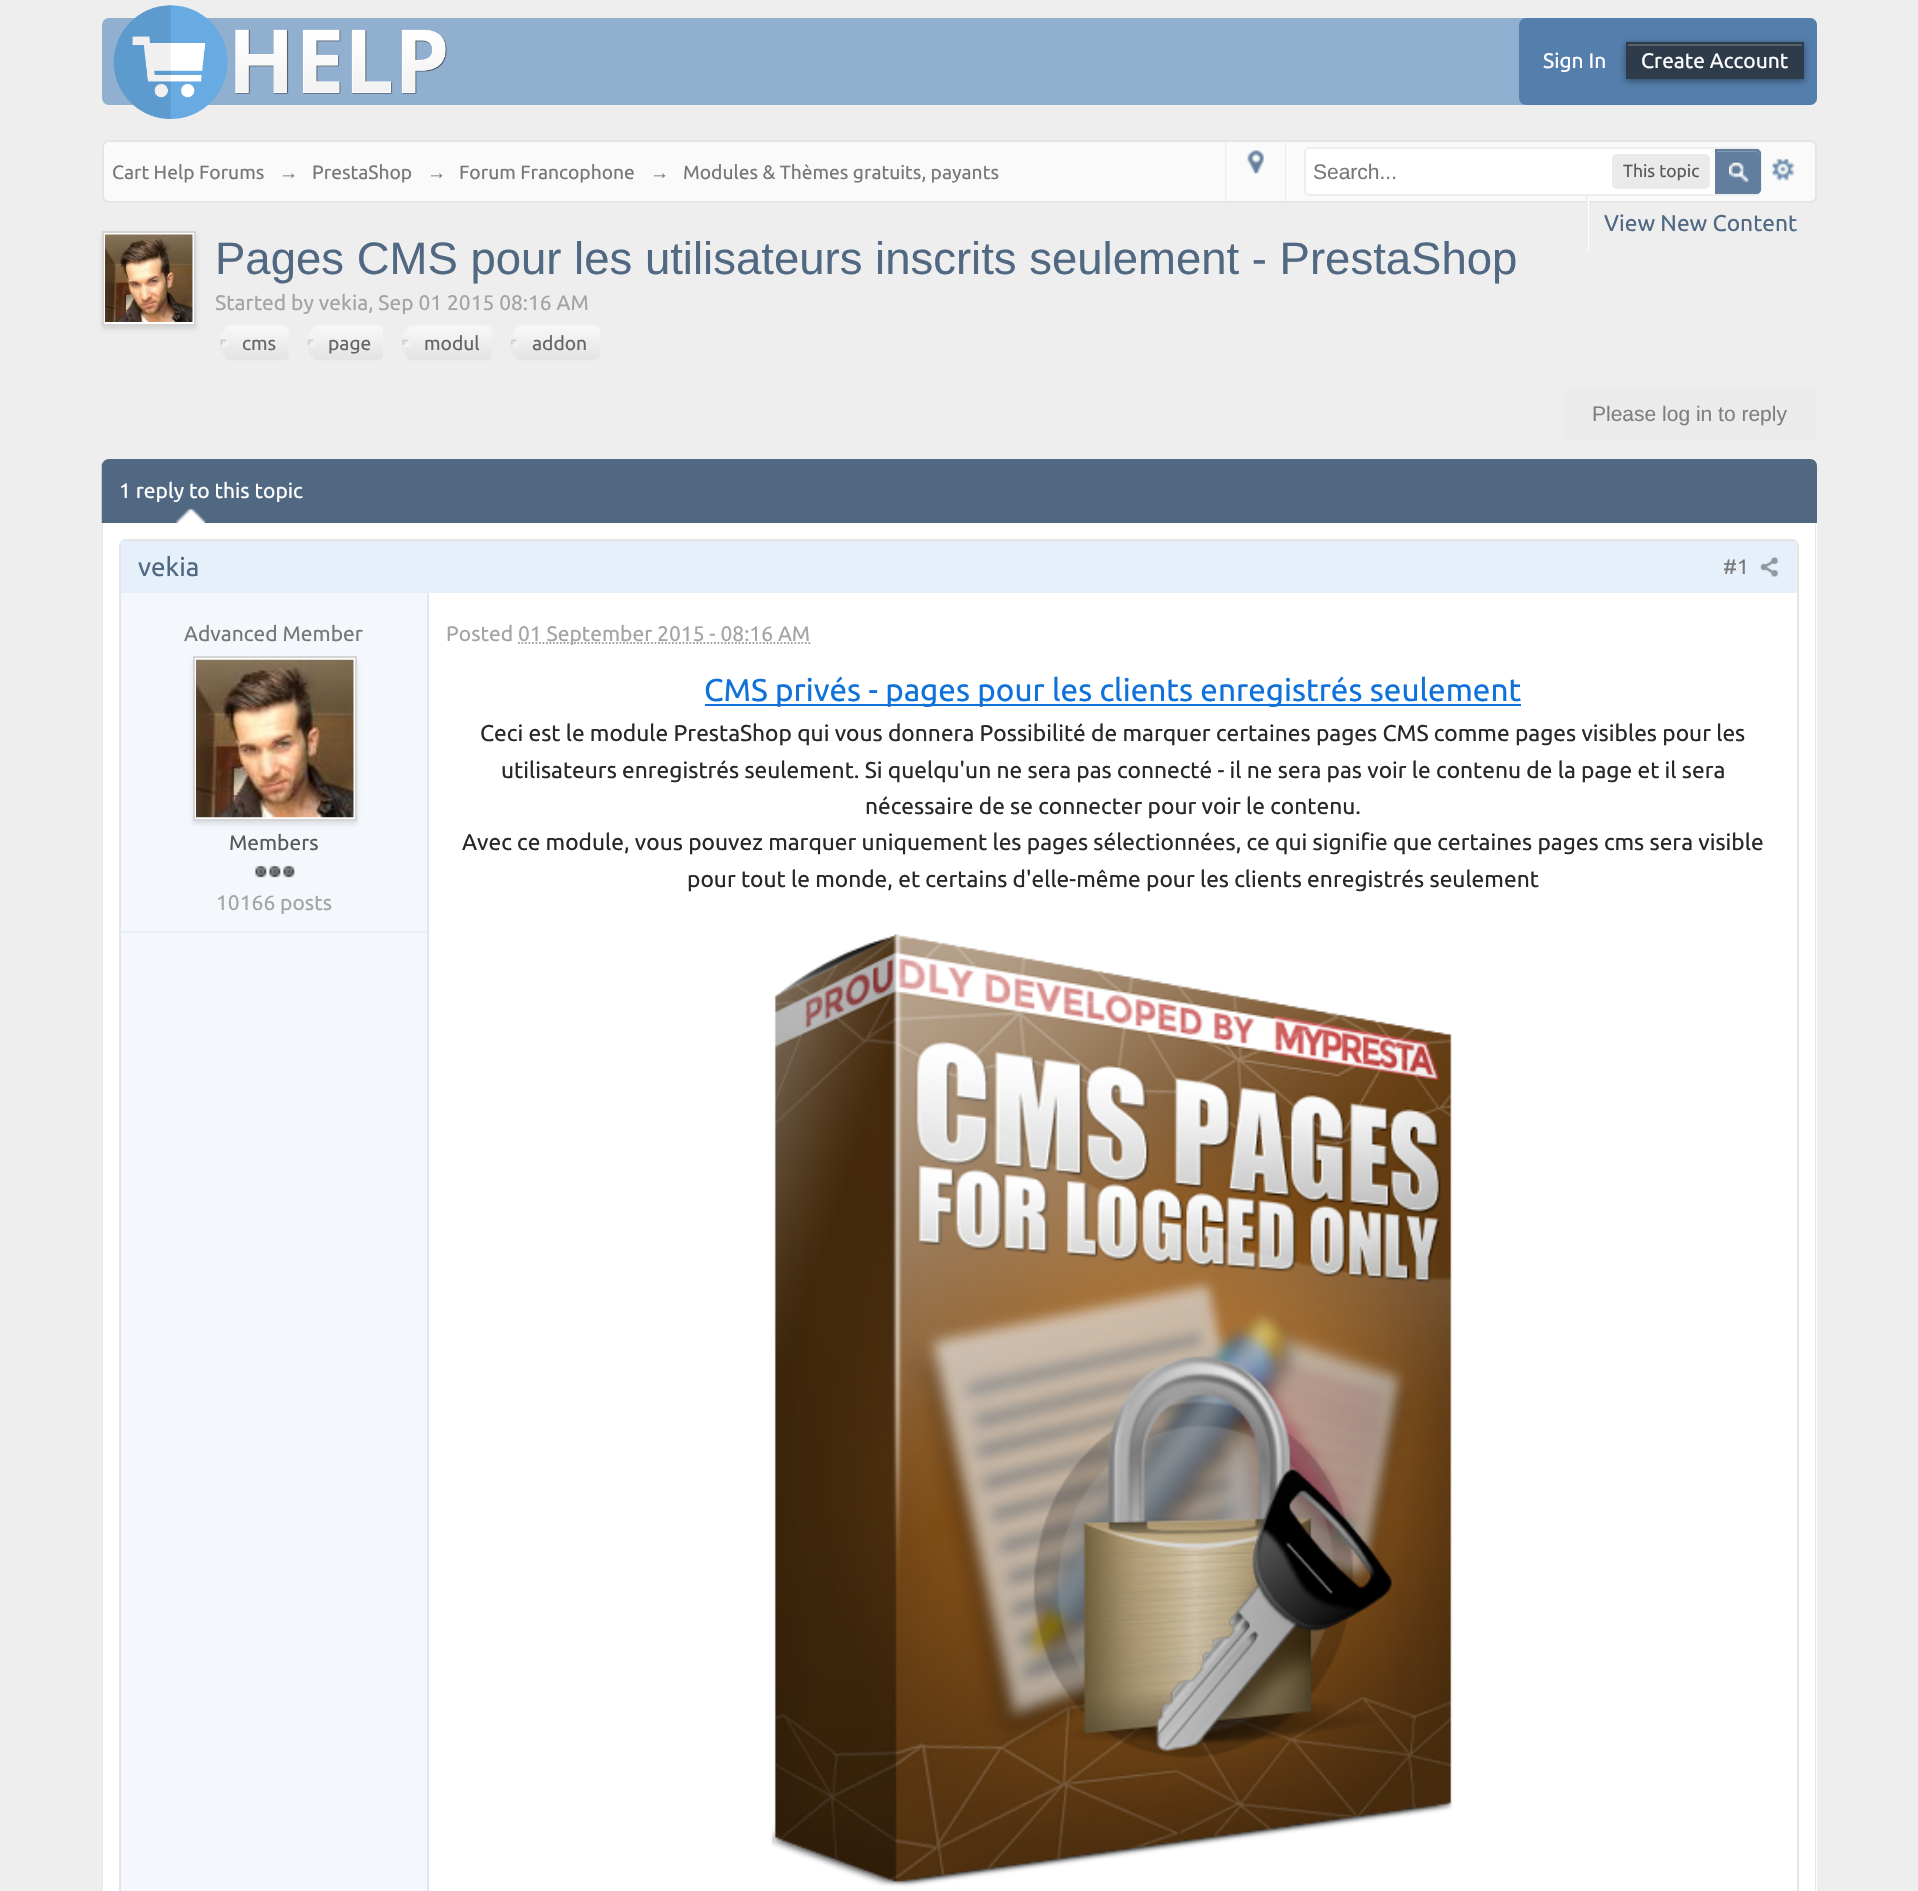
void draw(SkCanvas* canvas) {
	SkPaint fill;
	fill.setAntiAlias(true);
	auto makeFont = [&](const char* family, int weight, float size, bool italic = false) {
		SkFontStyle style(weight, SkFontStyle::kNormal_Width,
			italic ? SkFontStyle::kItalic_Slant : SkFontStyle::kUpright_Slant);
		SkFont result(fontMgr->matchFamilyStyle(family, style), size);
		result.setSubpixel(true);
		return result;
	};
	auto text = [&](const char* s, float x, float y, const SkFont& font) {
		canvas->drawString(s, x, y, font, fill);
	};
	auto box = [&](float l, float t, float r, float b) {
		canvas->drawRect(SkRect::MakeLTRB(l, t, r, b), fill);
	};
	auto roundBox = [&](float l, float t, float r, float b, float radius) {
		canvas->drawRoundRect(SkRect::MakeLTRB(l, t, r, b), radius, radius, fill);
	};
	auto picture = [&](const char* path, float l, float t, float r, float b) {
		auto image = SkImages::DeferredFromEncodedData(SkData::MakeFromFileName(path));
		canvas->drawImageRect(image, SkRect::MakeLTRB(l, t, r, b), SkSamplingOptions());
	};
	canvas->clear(0xFFEEEEEE);
	fill.setColor(0xFF91AFCE);
	roundBox(102, 18, 1817, 105, 7);
	picture("image0.png", 113, 5, 447, 119);
	fill.setColor(0xFF547EAC);
	roundBox(1519, 18, 1817, 105, 7);
	fill.setColor(0x66000000);
	fill.setMaskFilter(SkMaskFilter::MakeBlur(kNormal_SkBlurStyle, 3.5f));
	canvas->drawRect(SkRect::MakeLTRB(1626, 44, 1804, 81), fill);
	fill.setMaskFilter(nullptr);
	fill.setColor(0xFF2D3B4A);
	box(1628, 46, 1802, 77);
	fill.setColor(0xFF57626E);
	box(1628, 44, 1803, 46);
	fill.setStyle(SkPaint::kStroke_Style);
	fill.setStrokeWidth(2);
	fill.setColor(0xFF2D3B4A);
	canvas->drawRect(SkRect::MakeLTRB(1627, 43, 1803, 78), fill);
	fill.setStyle(SkPaint::kFill_Style);
	fill.setColor(0xFFFAFAFA);
	canvas->drawRoundRect(SkRect::MakeLTRB(103, 141, 1816, 202), 6, 6, fill);
	fill.setStyle(SkPaint::kStroke_Style);
	fill.setColor(0xFFE5E5E5);
	canvas->drawRoundRect(SkRect::MakeLTRB(103, 141, 1816, 202), 6, 6, fill);
	fill.setStyle(SkPaint::kFill_Style);
	fill.setColor(0xFFFFFFFF);
	box(1227, 142, 1229, 201);
	fill.setColor(0xFFF0F0F0);
	box(1225, 142, 1227, 201);
	picture("image1.png", 1247, 150, 1264, 174);
	fill.setColor(0xFFFFFFFF);
	box(1287, 142, 1288, 201);
	fill.setColor(0xFFF0F0F0);
	box(1285, 142, 1287, 201);
	fill.setColor(0xFFFFFFFF);
	box(1588, 193, 1589, 252);
	fill.setColor(0xFFF0F0F0);
	box(1586, 193, 1588, 203);
	fill.setColor(0xFFFFFFFF);
	canvas->drawPath(SkPathBuilder().moveTo(1309, 148).lineTo(1755, 148).cubicTo(1758.5f, 148, 1761, 150.5f, 1761, 154).lineTo(1761, 189).cubicTo(1761, 192.5f, 1758.5f, 195, 1755, 195).lineTo(1309, 195).cubicTo(1307, 195, 1305, 193, 1305, 191).lineTo(1305, 152).cubicTo(1305, 150, 1307, 148, 1309, 148).close().detach(), fill);
	fill.setStyle(SkPaint::kStroke_Style);
	fill.setColor(0xFFEEEEEE);
	canvas->drawPath(SkPathBuilder().moveTo(1309, 148).lineTo(1755, 148).cubicTo(1758.5f, 148, 1761, 150.5f, 1761, 154).lineTo(1761, 189).cubicTo(1761, 192.5f, 1758.5f, 195, 1755, 195).lineTo(1309, 195).cubicTo(1307, 195, 1305, 193, 1305, 191).lineTo(1305, 152).cubicTo(1305, 150, 1307, 148, 1309, 148).close().detach(), fill);
	fill.setStyle(SkPaint::kFill_Style);
	fill.setColor(0xFFEAEAEA);
	roundBox(1612, 154, 1710, 189, 5);
	fill.setColor(0xFF617E9C);
	canvas->drawPath(SkPathBuilder().moveTo(1715, 149).lineTo(1756, 149).cubicTo(1759, 149, 1761, 151, 1761, 154).lineTo(1761, 189).cubicTo(1761, 192, 1759, 194, 1756, 194).lineTo(1715, 194).close().detach(), fill);
	picture("image2.png", 1729, 162, 1749, 182);
	fill.setColor(0xFF8198B0);
	canvas->drawPath(SkPathBuilder().moveTo(1717, 152).lineTo(1755, 152).cubicTo(1757, 152, 1759, 154, 1759, 156).lineTo(1759, 155).cubicTo(1759, 153, 1757, 151, 1755, 151).lineTo(1717, 151).close().detach(), fill);
	fill.setStyle(SkPaint::kStroke_Style);
	fill.setColor(0xFF617E9C);
	canvas->drawPath(SkPathBuilder().moveTo(1716, 150).lineTo(1756, 150).cubicTo(1758, 150, 1760, 152, 1760, 154).lineTo(1760, 189).cubicTo(1760, 191, 1758, 193, 1756, 193).lineTo(1716, 193).close().detach(), fill);
	picture("image3.png", 1772, 158, 1795, 181);
	fill.setStyle(SkPaint::kFill_Style);
	fill.setColor(0x1A000000);
	fill.setMaskFilter(SkMaskFilter::MakeBlur(kNormal_SkBlurStyle, 2));
	canvas->drawRect(SkRect::MakeLTRB(102, 235, 196, 329), fill);
	fill.setMaskFilter(nullptr);
	fill.setColor(0xFFFFFFFF);
	canvas->drawRect(SkRect::MakeLTRB(103, 232, 195, 325), fill);
	fill.setStyle(SkPaint::kStroke_Style);
	fill.setColor(0xFFD5D5D5);
	canvas->drawRect(SkRect::MakeLTRB(103, 232, 195, 325), fill);
	picture("image4.png", 105, 234, 193, 322);
	picture("image5.png", 220, 325, 289, 361);
	picture("image6.png", 307, 325, 383, 361);
	picture("image7.png", 402, 325, 492, 361);
	picture("image8.png", 510, 325, 600, 361);
	fill.setStyle(SkPaint::kFill_Style);
	fill.setColor(0xFFEBEBEB);
	roundBox(1563, 389, 1817, 441, 5);
	fill.setColor(0xFF506881);
	canvas->drawPath(SkPathBuilder().moveTo(109, 459).lineTo(1810, 459).cubicTo(1814, 459, 1817, 462, 1817, 466).lineTo(1817, 523).lineTo(102, 523).lineTo(102, 466).cubicTo(102, 462, 105, 459, 109, 459).close().detach(), fill);
	picture("image9.png", 101, 463, 212, 523);
	fill.setColor(0xFFFFFFFF);
	box(103, 523, 1817, 1891);
	fill.setColor(0xFFE6E6E6);
	canvas->drawPath(SkPathBuilder(SkPathFillType::kEvenOdd).moveTo(102, 523).lineTo(1816, 523).lineTo(1816, 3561).cubicTo(1816, 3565, 1813, 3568, 1810, 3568).lineTo(108, 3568).cubicTo(105, 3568, 102, 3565, 102, 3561).close().moveTo(103, 523).lineTo(1815, 523).lineTo(1815, 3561).cubicTo(1815, 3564, 1812, 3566, 1810, 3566).lineTo(108, 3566).cubicTo(106, 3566, 103, 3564, 103, 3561).close().detach(), fill);
	fill.setStyle(SkPaint::kStroke_Style);
	fill.setColor(0xFFE5E5E5);
	canvas->drawRoundRect(SkRect::MakeLTRB(120, 540, 1798, 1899), 6, 6, fill);
	fill.setStyle(SkPaint::kFill_Style);
	fill.setColor(0xFFF4F8FC);
	box(121, 593, 427, 1891);
	fill.setColor(0xFFE6F0FA);
	box(121, 541, 1797, 593);
	picture("image10.png", 1760, 557, 1778, 577);
	fill.setColor(0x1A000000);
	fill.setMaskFilter(SkMaskFilter::MakeBlur(kNormal_SkBlurStyle, 2));
	canvas->drawRect(SkRect::MakeLTRB(193, 660, 357, 824), fill);
	fill.setMaskFilter(nullptr);
	fill.setColor(0xFFFFFFFF);
	canvas->drawRect(SkRect::MakeLTRB(194, 657, 356, 820), fill);
	fill.setStyle(SkPaint::kStroke_Style);
	fill.setColor(0xFFD5D5D5);
	canvas->drawRect(SkRect::MakeLTRB(194, 657, 356, 820), fill);
	picture("image11.png", 196, 659, 354, 818);
	picture("image12.png", 255, 865, 267, 878);
	picture("image12.png", 269, 865, 281, 878);
	picture("image12.png", 283, 865, 295, 878);
	fill.setStyle(SkPaint::kFill_Style);
	fill.setColor(0xFFE9EFF5);
	box(121, 931, 427, 933);
	fill.setColor(0xFFDFE7F0);
	box(427, 593, 429, 1891);
	fill.setStyle(SkPaint::kStroke_Style);
	fill.setStrokeWidth(1.8f);
	fill.setColor(0xFFA4A4A4);
	fill.setPathEffect(SkDashPathEffect::Make({{1.75f, 1.75f}}, 0));
	canvas->drawPath(SkPathBuilder().moveTo(518, 643).lineTo(810.5f, 643).detach(), fill);
	fill.setPathEffect(nullptr);
	fill.setStyle(SkPaint::kFill_Style);
	fill.setColor(0xFF0F72DA);
	box(705, 704, 1521, 706);
	picture("image13.png", 771, 934, 1453, 1887);
	auto font1 = makeFont("Ubuntu", 400, 21);
	fill.setColor(0xFFFFFFFF);
	text("Sign In", 1543, 68, font1);
	text("Create Account", 1641, 68, font1);
	auto font2 = makeFont("Ubuntu", 400, 19.25f);
	fill.setColor(0xFF777777);
	text("Cart Help Forums", 112, 179, font2);
	auto font3 = makeFont("Liberation Sans", 400, 19.25f);
	text("→", 279, 179, font3);
	text("PrestaShop", 312, 179, font2);
	text("→", 427, 179, font3);
	text("Forum Francophone", 459, 179, font2);
	text("→", 650, 179, font3);
	text("Modules & Thèmes gratuits, payants", 683, 179, font2);
	auto font4 = makeFont("Liberation Sans", 400, 21);
	text("Search...", 1313, 179, font4);
	auto font5 = makeFont("Ubuntu", 400, 17.5f);
	fill.setColor(0xFF5A5A5A);
	text("This topic", 1623, 177, font5);
	auto font6 = makeFont("Ubuntu", 400, 22.75f);
	fill.setColor(0xFF506881);
	text("View New Content", 1604, 231, font6);
	auto font7 = makeFont("Liberation Sans", 400, 45.5f);
	text("Pages CMS pour les utilisateurs inscrits seulement - PrestaShop", 215, 274, font7);
	fill.setColor(0xFFA4A4A4);
	text("Started by vekia, Sep 01 2015 08:16 AM", 215, 310, font1);
	fill.setColor(0xFF656565);
	text("cms", 242, 350, font2);
	text("page", 328, 350, font2);
	text("modul", 424, 350, font2);
	text("addon", 532, 350, font2);
	fill.setColor(0xFF7F7F7F);
	text("Please log in to reply", 1592, 421, font4);
	fill.setColor(0xFFFFFFFF);
	text("1 reply to this topic", 119, 498, font1);
	auto font8 = makeFont("Ubuntu", 400, 26);
	fill.setColor(0xFF506881);
	text("vekia", 138, 576, font8);
	fill.setColor(0xFF777777);
	text("#1", 1723, 574, font1);
	text("Advanced Member", 184, 641, font1);
	fill.setColor(0xFF5A5A5A);
	text("Members", 229, 850, font1);
	fill.setColor(0xFFA4A4A4);
	text("10166 posts", 216, 910, font1);
	text("Posted", 446, 641, font1);
	text("01 September 2015 - 08:16 AM", 518, 641, font1);
	auto font9 = makeFont("Ubuntu", 400, 31.5f);
	fill.setColor(0xFF0F72DA);
	text("CMS privés - pages pour les clients enregistrés seulement", 704, 701, font9);
	fill.setColor(0xFF282828);
	text("Ceci est le module PrestaShop qui vous donnera Possibilité de marquer certaines pages CMS comme pages visibles pour les", 480, 741, font6);
	text("utilisateurs enregistrés seulement. Si quelqu'un ne sera pas connecté - il ne sera pas voir le contenu de la page et il sera", 501, 778, font6);
	text("nécessaire de se connecter pour voir le contenu.", 865, 814, font6);
	text("Avec ce module, vous pouvez marquer uniquement les pages sélectionnées, ce qui signifie que certaines pages cms sera visible", 462, 850, font6);
	text("pour tout le monde, et certains d'elle-même pour les clients enregistrés seulement", 687, 887, font6);
}
